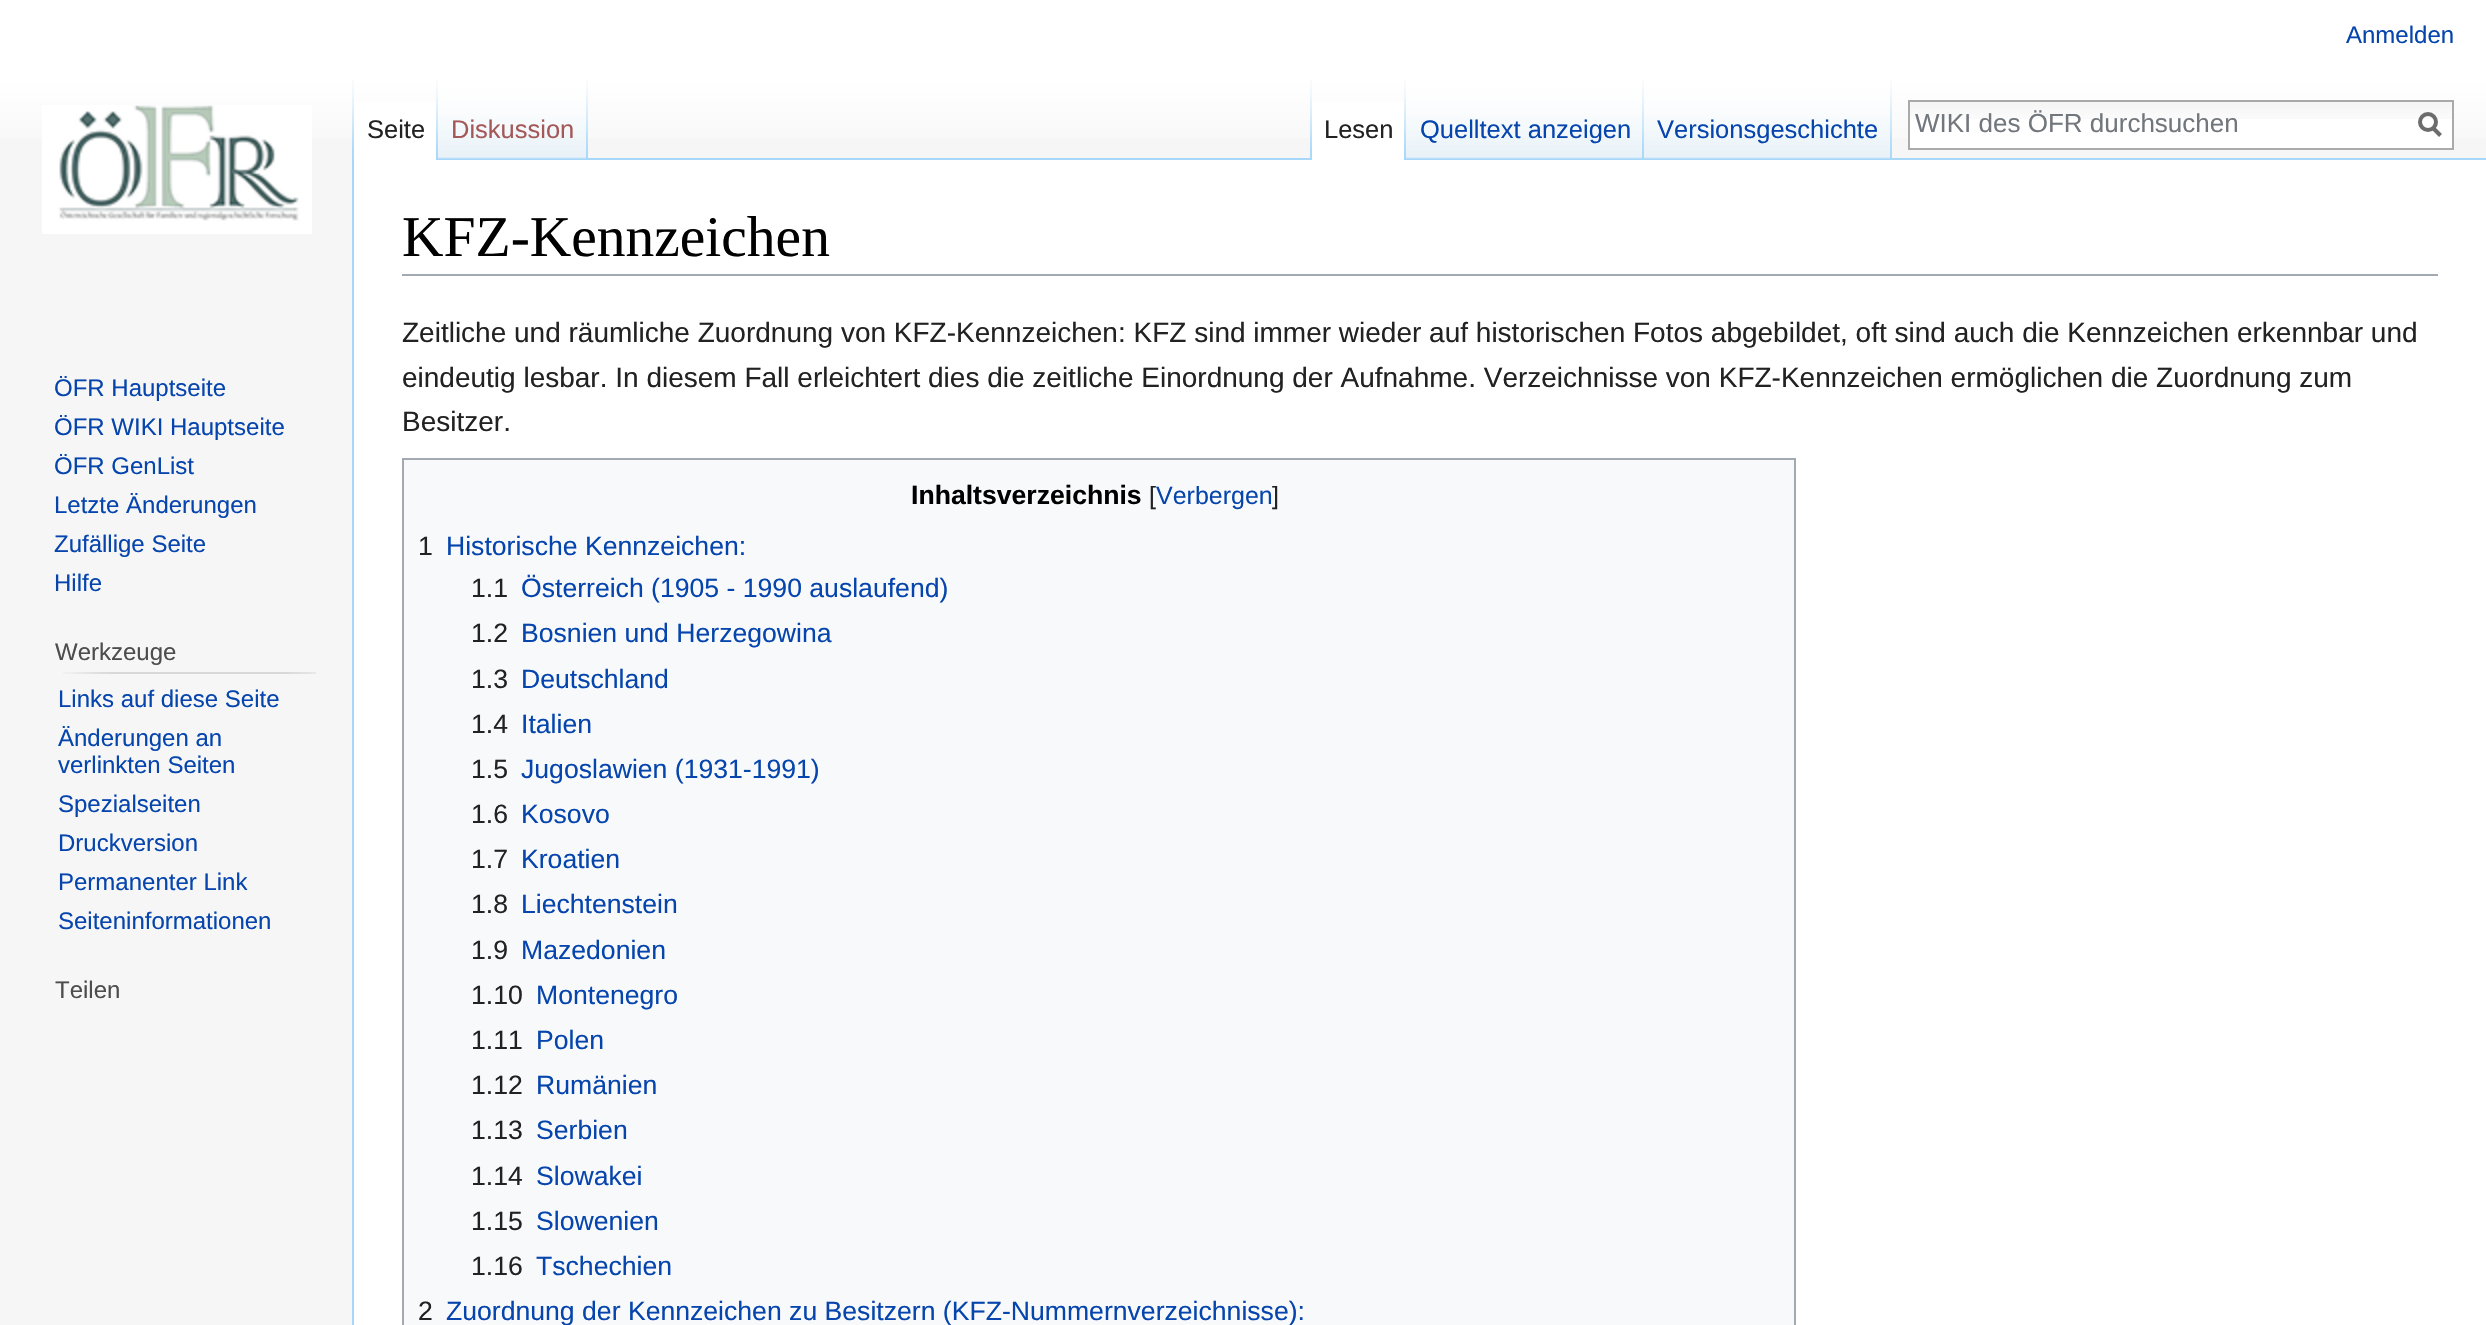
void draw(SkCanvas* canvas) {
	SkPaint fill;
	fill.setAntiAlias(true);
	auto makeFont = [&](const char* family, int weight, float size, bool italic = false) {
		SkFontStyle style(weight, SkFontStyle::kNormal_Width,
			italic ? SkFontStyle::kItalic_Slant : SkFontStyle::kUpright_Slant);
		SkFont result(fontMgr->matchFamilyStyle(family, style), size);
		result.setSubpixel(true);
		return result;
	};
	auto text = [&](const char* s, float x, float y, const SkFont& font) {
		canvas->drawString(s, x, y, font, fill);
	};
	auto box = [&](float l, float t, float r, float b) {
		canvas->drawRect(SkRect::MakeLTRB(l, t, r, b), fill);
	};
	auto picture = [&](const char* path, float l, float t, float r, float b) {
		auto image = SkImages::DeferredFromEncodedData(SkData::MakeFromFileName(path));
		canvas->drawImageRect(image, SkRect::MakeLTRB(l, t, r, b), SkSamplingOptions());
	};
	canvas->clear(0xFFF6F6F6);
	{
		const SkColor colors[] = {0xFFFFFFFF, 0xFFF6F6F6};
		const float stops[] = {0.5f, 1};
		const SkPoint ends[] = {{1243, 0}, {1243, 160}};
		fill.setShader(SkGradientShader::MakeLinear(ends, colors, stops, 2, SkTileMode::kClamp));
		fill.setAlpha(255);
	}
	box(0, 0, 2486, 138);
	picture("image0.png", 352, 80, 354, 158);
	fill.setShader(nullptr);
	fill.setColor(0xFFFFFFFF);
	box(354, 102, 436, 160);
	picture("image1.png", 436, 80, 438, 160);
	picture("image2.png", 438, 80, 588, 160);
	picture("image3.png", 586, 80, 588, 159);
	picture("image0.png", 1310, 80, 1312, 158);
	fill.setColor(0xFFA7D7F9);
	box(588, 158, 2486, 160);
	fill.setColor(0xFFFFFFFF);
	box(1312, 102, 1404, 160);
	picture("image1.png", 1404, 80, 1406, 160);
	picture("image4.png", 1406, 80, 1644, 160);
	picture("image3.png", 1642, 80, 1644, 159);
	picture("image5.png", 1644, 80, 1892, 160);
	picture("image3.png", 1890, 80, 1892, 159);
	box(1910, 119, 2452, 148);
	picture("image6.png", 1910, 102, 2452, 119);
	fill.setStyle(SkPaint::kStroke_Style);
	fill.setStrokeWidth(2);
	fill.setColor(0xFFAAAAAA);
	canvas->drawRect(SkRect::MakeLTRB(1909, 101, 2453, 149), fill);
	fill.setStrokeWidth(4);
	fill.setColor(0xFF6C6C6C);
	canvas->drawPath(SkPathBuilder().moveTo(2440.5f, 135.5f).lineTo(2432.5f, 127.5f).detach(), fill);
	canvas->drawCircle(2428, 122, 8, fill);
	picture("image7.png", 42, 105, 312, 234);
	picture("image8.png", 63, 672, 316, 674);
	fill.setStyle(SkPaint::kFill_Style);
	fill.setColor(0xFFFFFFFF);
	box(354, 160, 2486, 1325);
	fill.setColor(0xFFA7D7F9);
	box(352, 158, 354, 1325);
	fill.setColor(0xFFA2A9B1);
	box(402, 274, 2438, 276);
	fill.setColor(0xFFF8F9FA);
	canvas->drawRect(SkRect::MakeLTRB(403, 459, 1795, 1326), fill);
	fill.setStyle(SkPaint::kStroke_Style);
	fill.setStrokeWidth(2);
	fill.setColor(0xFFA2A9B1);
	canvas->drawRect(SkRect::MakeLTRB(403, 459, 1795, 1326), fill);
	auto font1 = makeFont("Liberation Sans", 400, 24);
	fill.setStyle(SkPaint::kFill_Style);
	fill.setColor(0xFF0645AD);
	text("Anmelden", 2346, 43, font1);
	auto font2 = makeFont("Liberation Sans", 400, 25.5f);
	fill.setColor(0xFF222222);
	text("Seite", 367, 138, font2);
	fill.setColor(0xFFA55858);
	text("Diskussion", 451, 138, font2);
	fill.setColor(0xFF222222);
	text("Lesen", 1324, 138, font2);
	fill.setColor(0xFF0645AD);
	text("Quelltext anzeigen", 1420, 138, font2);
	text("Versionsgeschichte", 1657, 138, font2);
	auto font3 = makeFont("Liberation Sans", 400, 26);
	fill.setColor(0xFF72777D);
	text("WIKI des ÖFR durchsuchen", 1915, 132, font3);
	fill.setColor(0xFF0645AD);
	text("ÖFR Hauptseite", 54, 396, font1);
	text("ÖFR WIKI Hauptseite", 54, 435, font1);
	text("ÖFR GenList", 54, 474, font1);
	text("Letzte Änderungen", 54, 513, font1);
	text("Zufällige Seite", 54, 552, font1);
	text("Hilfe", 54, 591, font1);
	fill.setColor(0xFF4D4D4D);
	text("Werkzeuge", 55, 660, font1);
	fill.setColor(0xFF0645AD);
	text("Links auf diese Seite", 58, 707, font1);
	text("Änderungen an", 58, 746, font1);
	text("verlinkten Seiten", 58, 773, font1);
	text("Spezialseiten", 58, 812, font1);
	text("Druckversion", 58, 851, font1);
	text("Permanenter Link", 58, 890, font1);
	text("Seiteninformationen", 58, 929, font1);
	fill.setColor(0xFF4D4D4D);
	text("Teilen", 55, 998, font1);
	auto font4 = makeFont("Liberation Serif", 400, 57.5f);
	fill.setColor(0xFF000000);
	text("KFZ-Kennzeichen", 402, 256, font4);
	auto font5 = makeFont("Liberation Sans", 400, 28);
	fill.setColor(0xFF222222);
	text("Zeitliche und räumliche Zuordnung von KFZ-Kennzeichen: KFZ sind immer wieder auf historischen Fotos abgebildet, oft sind auch die Kennzeichen erkennbar und", 402, 342, font5);
	text("eindeutig lesbar. In diesem Fall erleichtert dies die zeitliche Einordnung der Aufnahme. Verzeichnisse von KFZ-Kennzeichen ermöglichen die Zuordnung zum", 402, 387, font5);
	text("Besitzer.", 402, 431, font5);
	auto font6 = makeFont("Liberation Sans", 700, 26.6f);
	fill.setColor(0xFF000000);
	text("Inhaltsverzeichnis", 911, 504, font6);
	auto font7 = makeFont("Liberation Sans", 400, 25);
	fill.setColor(0xFF222222);
	text("[", 1149, 504, font7);
	fill.setColor(0xFF0645AD);
	text("Verbergen", 1156, 504, font7);
	fill.setColor(0xFF222222);
	text("]", 1272, 504, font7);
	auto font8 = makeFont("Liberation Sans", 400, 26.6f);
	text("1", 418, 555, font8);
	fill.setColor(0xFF0645AD);
	text("Historische Kennzeichen:", 446, 555, font8);
	fill.setColor(0xFF222222);
	text("1.1", 471, 597, font8);
	fill.setColor(0xFF0645AD);
	text("Österreich (1905 - 1990 auslaufend)", 521, 597, font8);
	fill.setColor(0xFF222222);
	text("1.2", 471, 642, font8);
	fill.setColor(0xFF0645AD);
	text("Bosnien und Herzegowina", 521, 642, font8);
	fill.setColor(0xFF222222);
	text("1.3", 471, 688, font8);
	fill.setColor(0xFF0645AD);
	text("Deutschland", 521, 688, font8);
	fill.setColor(0xFF222222);
	text("1.4", 471, 733, font8);
	fill.setColor(0xFF0645AD);
	text("Italien", 521, 733, font8);
	fill.setColor(0xFF222222);
	text("1.5", 471, 778, font8);
	fill.setColor(0xFF0645AD);
	text("Jugoslawien (1931-1991)", 521, 778, font8);
	fill.setColor(0xFF222222);
	text("1.6", 471, 823, font8);
	fill.setColor(0xFF0645AD);
	text("Kosovo", 521, 823, font8);
	fill.setColor(0xFF222222);
	text("1.7", 471, 868, font8);
	fill.setColor(0xFF0645AD);
	text("Kroatien", 521, 868, font8);
	fill.setColor(0xFF222222);
	text("1.8", 471, 913, font8);
	fill.setColor(0xFF0645AD);
	text("Liechtenstein", 521, 913, font8);
	fill.setColor(0xFF222222);
	text("1.9", 471, 959, font8);
	fill.setColor(0xFF0645AD);
	text("Mazedonien", 521, 959, font8);
	fill.setColor(0xFF222222);
	text("1.10", 471, 1004, font8);
	fill.setColor(0xFF0645AD);
	text("Montenegro", 536, 1004, font8);
	fill.setColor(0xFF222222);
	text("1.11", 471, 1049, font8);
	fill.setColor(0xFF0645AD);
	text("Polen", 536, 1049, font8);
	fill.setColor(0xFF222222);
	text("1.12", 471, 1094, font8);
	fill.setColor(0xFF0645AD);
	text("Rumänien", 536, 1094, font8);
	fill.setColor(0xFF222222);
	text("1.13", 471, 1139, font8);
	fill.setColor(0xFF0645AD);
	text("Serbien", 536, 1139, font8);
	fill.setColor(0xFF222222);
	text("1.14", 471, 1185, font8);
	fill.setColor(0xFF0645AD);
	text("Slowakei", 536, 1185, font8);
	fill.setColor(0xFF222222);
	text("1.15", 471, 1230, font8);
	fill.setColor(0xFF0645AD);
	text("Slowenien", 536, 1230, font8);
	fill.setColor(0xFF222222);
	text("1.16", 471, 1275, font8);
	fill.setColor(0xFF0645AD);
	text("Tschechien", 536, 1275, font8);
	fill.setColor(0xFF222222);
	text("2", 418, 1320, font8);
	fill.setColor(0xFF0645AD);
	text("Zuordnung der Kennzeichen zu Besitzern (KFZ-Nummernverzeichnisse):", 446, 1320, font8);
}
